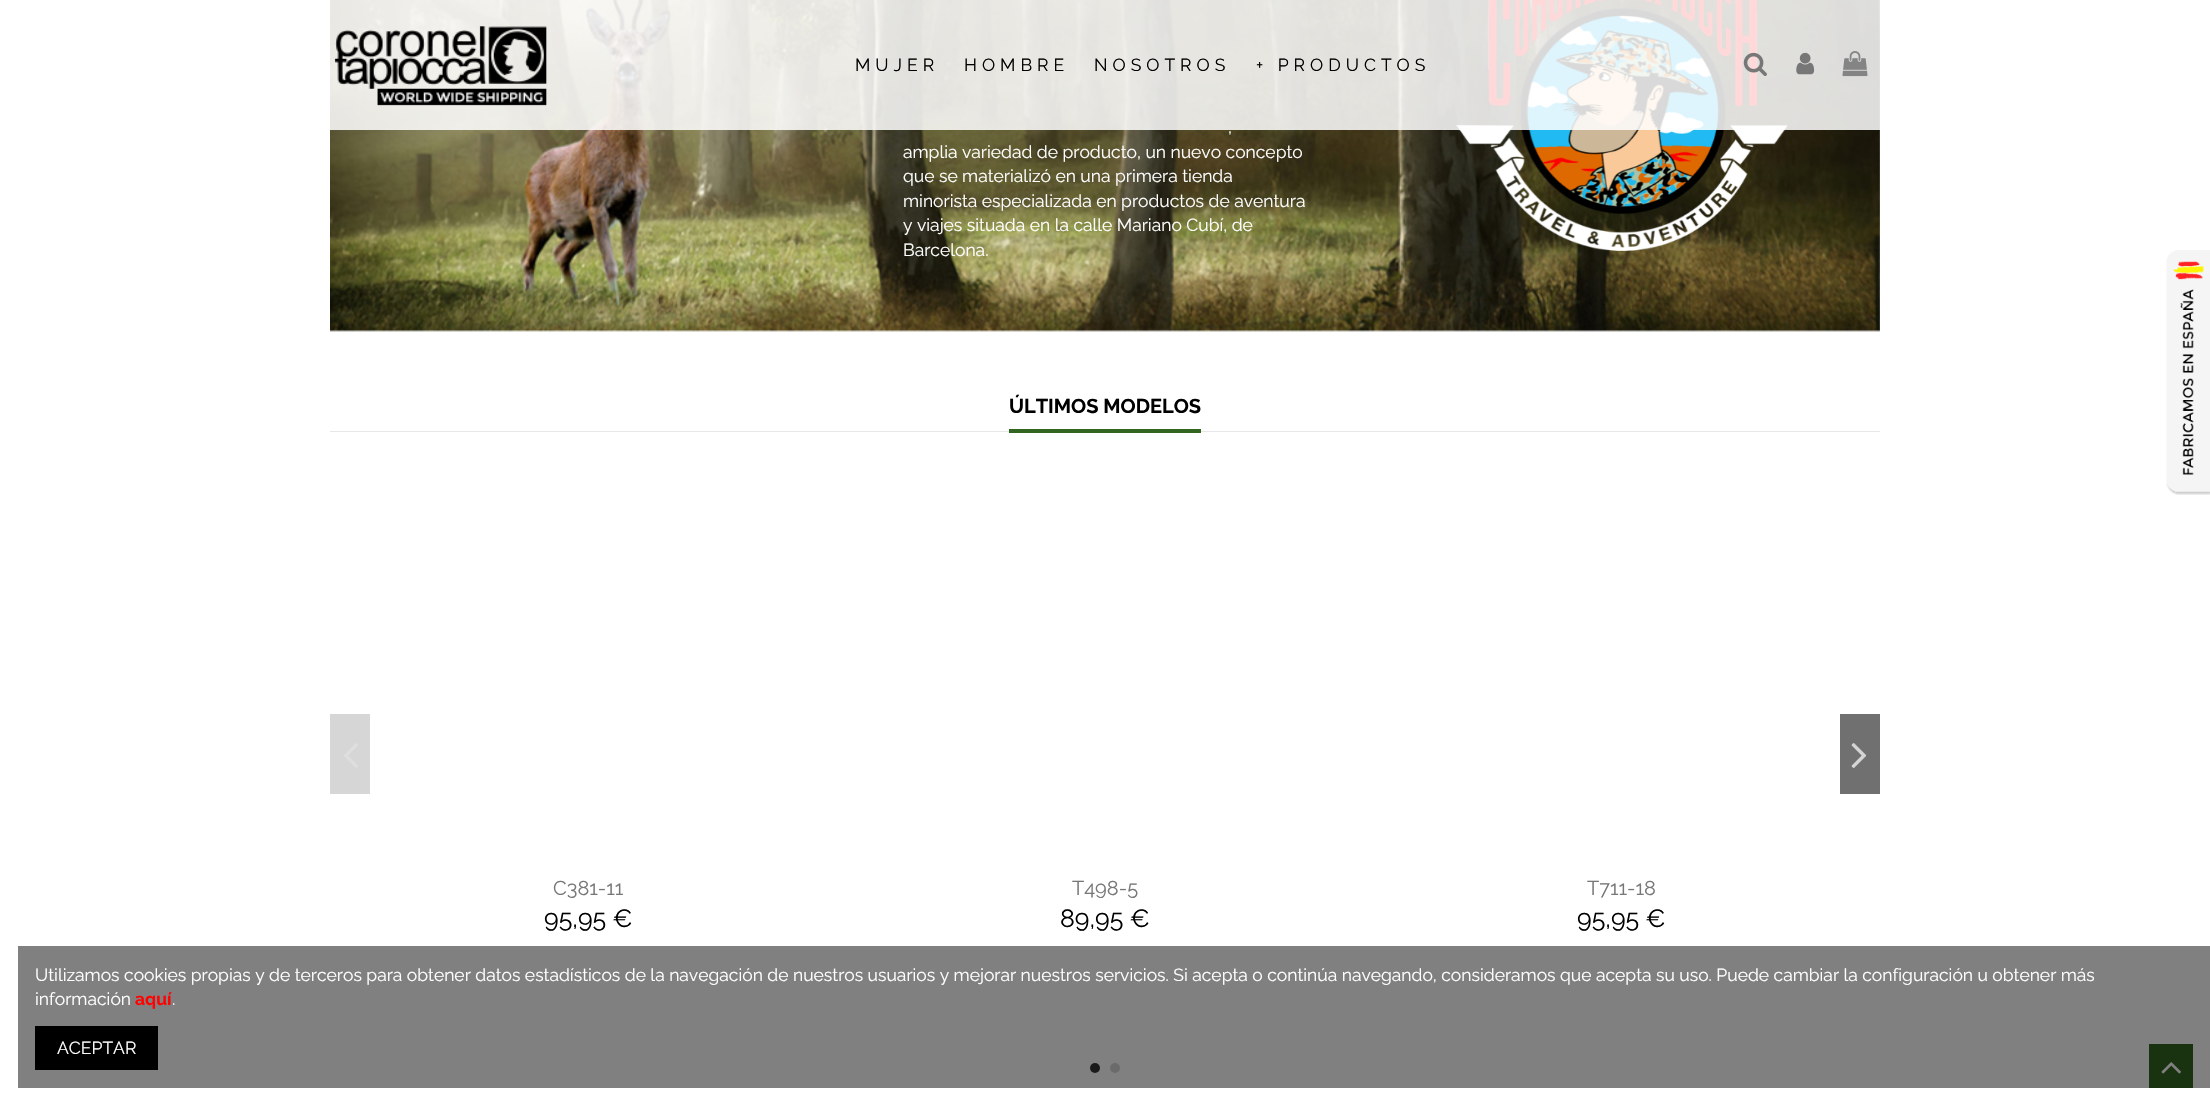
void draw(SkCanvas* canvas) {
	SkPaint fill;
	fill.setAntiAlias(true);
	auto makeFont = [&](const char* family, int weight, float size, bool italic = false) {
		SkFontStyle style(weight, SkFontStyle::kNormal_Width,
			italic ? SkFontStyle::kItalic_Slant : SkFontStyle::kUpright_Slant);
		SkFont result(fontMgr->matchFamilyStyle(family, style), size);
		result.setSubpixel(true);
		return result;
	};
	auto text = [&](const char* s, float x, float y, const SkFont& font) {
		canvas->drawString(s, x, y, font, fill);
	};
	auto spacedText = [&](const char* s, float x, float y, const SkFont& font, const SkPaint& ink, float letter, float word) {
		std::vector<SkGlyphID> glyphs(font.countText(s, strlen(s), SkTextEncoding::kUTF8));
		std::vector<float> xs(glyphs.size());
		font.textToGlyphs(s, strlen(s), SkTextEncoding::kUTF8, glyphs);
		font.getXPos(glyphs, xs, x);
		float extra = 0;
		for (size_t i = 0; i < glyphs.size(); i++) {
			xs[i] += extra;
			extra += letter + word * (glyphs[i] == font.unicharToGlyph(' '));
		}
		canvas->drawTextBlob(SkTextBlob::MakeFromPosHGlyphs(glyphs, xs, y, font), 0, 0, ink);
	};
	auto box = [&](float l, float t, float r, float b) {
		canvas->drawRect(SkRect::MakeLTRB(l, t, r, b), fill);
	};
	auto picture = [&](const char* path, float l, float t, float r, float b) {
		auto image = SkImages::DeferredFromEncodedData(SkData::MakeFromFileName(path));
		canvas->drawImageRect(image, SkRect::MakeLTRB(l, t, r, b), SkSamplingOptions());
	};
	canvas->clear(0xFFFFFFFF);
	fill.setColor(0xFF808080);
	box(18, 946, 2210, 1088);
	picture("image4.png", 330, 0, 1880, 332);
	picture("image5.png", 1456, 0, 1788, 251);
	fill.setColor(0xD9FFFFFF);
	box(330, 0, 1880, 130);
	picture("image0.png", 334, 26, 547, 106);
	picture("image1.png", 1743, 52, 1767, 76);
	picture("image2.png", 1796, 52, 1815, 75);
	picture("image3.png", 1842, 51, 1868, 77);
	fill.setColor(0xFFE7E7E7);
	box(330, 431, 1880, 432);
	fill.setColor(0xFF326620);
	box(1009, 429, 1201, 433);
	fill.setColor(0xFFD6D6D6);
	box(330, 714, 370, 794);
	picture("image6.png", 344, 743, 358, 768);
	fill.setColor(0xFF707070);
	box(1840, 714, 1880, 794);
	picture("image7.png", 1851, 743, 1867, 768);
	fill.setColor(0xFF1A1A1A);
	canvas->drawCircle(1095, 1068, 5, fill);
	fill.setColor(0xFF6B6B6B);
	canvas->drawCircle(1115, 1068, 5, fill);
	picture("image8.png", 2166, 250, 2210, 495);
	fill.setColor(0xFF000000);
	box(35, 1026, 158, 1070);
	fill.setColor(0xFF193310);
	box(2149, 1044, 2193, 1088);
	picture("image9.png", 2161, 1062, 2181, 1074);
	auto font1 = makeFont("Raleway", 400, 17.5f);
	fill.setColor(0xFF000000);
	spacedText("MUJER", 855, 71, font1, fill, 5, 0);
	spacedText("HOMBRE", 964, 71, font1, fill, 5, 0);
	spacedText("NOSOTROS", 1094, 71, font1, fill, 5, 0);
	spacedText("+ PRODUCTOS", 1256, 71, font1, fill, 5, 0);
	fill.setColor(0xFFFFFFFF);
	text(",", 1228, 133, font1);
	text("amplia variedad de producto, un nuevo concepto", 903, 158, font1);
	text("que se materializó en una primera tienda", 903, 182, font1);
	text("minorista especializada en productos de aventura", 903, 207, font1);
	text("y viajes situada en la calle Mariano Cubí, de", 903, 231, font1);
	text("Barcelona.", 903, 256, font1);
	auto font2 = makeFont("Raleway", 700, 20);
	fill.setColor(0xFF000000);
	text("ÚLTIMOS MODELOS", 1009, 413, font2);
	auto font3 = makeFont("Raleway", 400, 20);
	fill.setColor(0xFF777777);
	text("C381-11", 553, 895, font3);
	auto font4 = makeFont("Raleway", 400, 25);
	fill.setColor(0xFF000000);
	text("95,95 €", 544, 927, font4);
	fill.setColor(0xFF777777);
	text("T498-5", 1072, 895, font3);
	fill.setColor(0xFF000000);
	text("89,95 €", 1060, 927, font4);
	fill.setColor(0xFF777777);
	text("T711-18", 1587, 895, font3);
	fill.setColor(0xFF000000);
	text("95,95 €", 1577, 927, font4);
	fill.setColor(0xFFFFFFFF);
	text("Utilizamos cookies propias y de terceros para obtener datos estadísticos de la navegación de nuestros usuarios y mejorar nuestros servicios. Si acepta o continúa navegando, consideramos que acepta su uso. Puede cambiar la configuración u obtener más", 35, 981, font1);
	text("información", 35, 1005, font1);
	auto font5 = makeFont("Raleway", 700, 17.5f);
	fill.setColor(0xFFFF0202);
	text("aquí", 135, 1005, font5);
	fill.setColor(0xFFFFFFFF);
	text(".", 172, 1005, font1);
	text("ACEPTAR", 57, 1054, font1);
}
